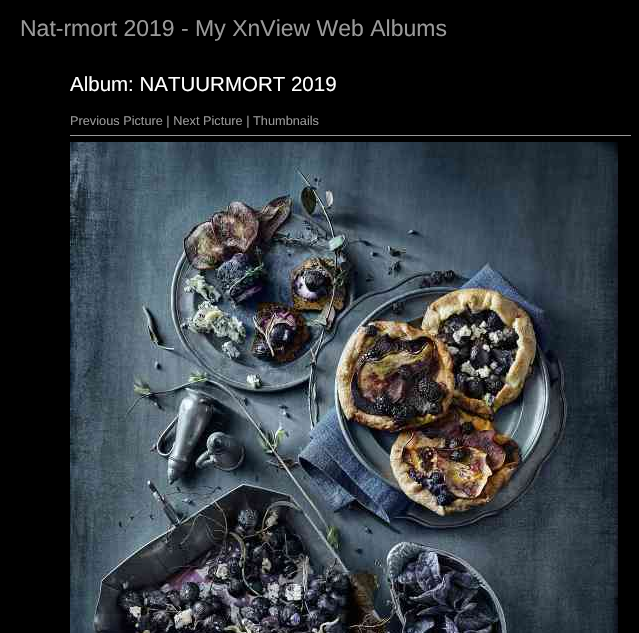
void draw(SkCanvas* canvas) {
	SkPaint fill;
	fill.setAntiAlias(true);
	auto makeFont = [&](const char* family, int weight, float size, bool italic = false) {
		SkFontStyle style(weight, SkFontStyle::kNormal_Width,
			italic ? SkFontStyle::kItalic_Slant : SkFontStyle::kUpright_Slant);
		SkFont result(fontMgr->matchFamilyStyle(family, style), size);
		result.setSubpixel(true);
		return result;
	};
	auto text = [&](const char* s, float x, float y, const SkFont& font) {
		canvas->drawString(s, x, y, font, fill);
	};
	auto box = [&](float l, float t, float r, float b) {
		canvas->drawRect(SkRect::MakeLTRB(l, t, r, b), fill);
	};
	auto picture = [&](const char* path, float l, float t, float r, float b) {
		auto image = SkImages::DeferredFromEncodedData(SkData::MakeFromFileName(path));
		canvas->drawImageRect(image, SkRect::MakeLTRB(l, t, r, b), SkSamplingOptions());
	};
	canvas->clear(0xFF000000);
	fill.setColor(0xFF999999);
	box(70, 135, 631, 136);
	picture("image0.png", 70, 142, 618, 633);
	auto font1 = makeFont("Liberation Sans", 400, 23);
	text("Nat-rmort 2019 - My XnView Web Albums", 20, 36, font1);
	auto font2 = makeFont("Liberation Sans", 400, 20.5f);
	fill.setColor(0xFFFFFFFF);
	text("Album: NATUURMORT 2019", 70, 91, font2);
	auto font3 = makeFont("Liberation Sans", 400, 12.75f);
	fill.setColor(0xFF999999);
	text("Previous Picture | Next Picture | Thumbnails", 70, 125, font3);
}
